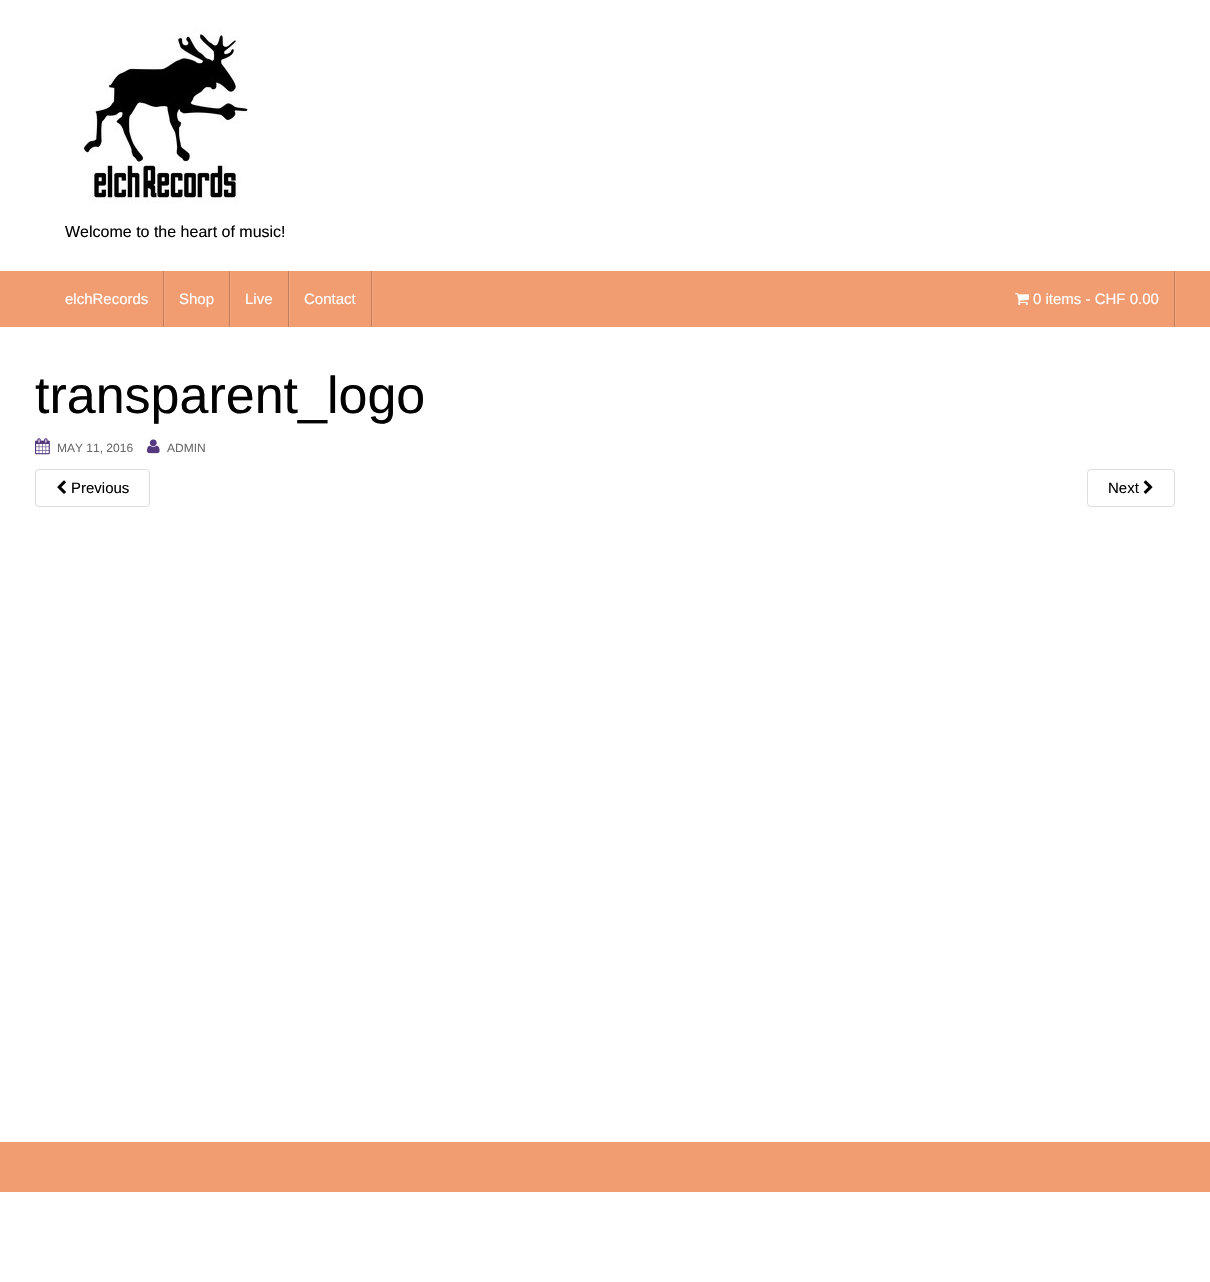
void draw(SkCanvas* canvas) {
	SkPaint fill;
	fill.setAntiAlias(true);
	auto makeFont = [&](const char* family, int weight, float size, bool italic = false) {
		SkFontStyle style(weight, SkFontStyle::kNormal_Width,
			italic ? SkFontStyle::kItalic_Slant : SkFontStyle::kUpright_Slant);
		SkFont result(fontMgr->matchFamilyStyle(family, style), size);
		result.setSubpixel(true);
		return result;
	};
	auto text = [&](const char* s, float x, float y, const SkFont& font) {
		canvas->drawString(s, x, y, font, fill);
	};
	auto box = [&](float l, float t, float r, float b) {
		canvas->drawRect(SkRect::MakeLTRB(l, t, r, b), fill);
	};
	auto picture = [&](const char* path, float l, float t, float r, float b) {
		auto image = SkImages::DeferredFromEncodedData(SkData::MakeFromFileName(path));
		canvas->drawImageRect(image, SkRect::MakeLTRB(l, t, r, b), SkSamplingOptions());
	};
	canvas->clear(0xFFFFFFFF);
	picture("image0.png", 82, 28, 248, 204);
	fill.setColor(0xFFF29C71);
	box(0, 271, 1210, 327);
	fill.setColor(0xFFF3A67F);
	box(164, 271, 165, 327);
	fill.setColor(0xFFC27D5A);
	box(163, 271, 164, 327);
	fill.setColor(0xFFF3A67F);
	box(230, 271, 231, 327);
	fill.setColor(0xFFC27D5A);
	box(229, 271, 230, 327);
	fill.setColor(0xFFF3A67F);
	box(289, 271, 290, 327);
	fill.setColor(0xFFC27D5A);
	box(288, 271, 289, 327);
	fill.setColor(0xFFF3A67F);
	box(372, 271, 373, 327);
	fill.setColor(0xFFC27D5A);
	box(371, 271, 372, 327);
	fill.setColor(0xFFF3A67F);
	box(1175, 271, 1176, 327);
	fill.setColor(0xFFC27D5A);
	box(1174, 271, 1175, 327);
	picture("image1.png", 1015, 293, 1029, 305);
	picture("image2.png", 35, 438, 50, 455);
	picture("image3.png", 147, 439, 160, 454);
	fill.setStyle(SkPaint::kStroke_Style);
	fill.setStrokeWidth(1);
	fill.setColor(0xFFDDDDDD);
	canvas->drawRoundRect(SkRect::MakeLTRB(35.5f, 469.5f, 149.5f, 506.5f), 3.5f, 3.5f, fill);
	picture("image4.png", 57, 480, 66, 494);
	canvas->drawRoundRect(SkRect::MakeLTRB(1087.5f, 469.5f, 1174.5f, 506.5f), 3.5f, 3.5f, fill);
	picture("image5.png", 1143, 480, 1153, 494);
	fill.setStyle(SkPaint::kFill_Style);
	fill.setColor(0xFFF29C71);
	box(0, 1142, 1210, 1192);
	auto font1 = makeFont("Liberation Sans", 400, 16);
	fill.setColor(0xFF020202);
	text("Welcome to the heart of music!", 65, 237, font1);
	auto font2 = makeFont("Liberation Sans", 400, 15);
	fill.setColor(0xFFFFFFFF);
	text("elchRecords", 65, 304, font2);
	text("Shop", 179, 304, font2);
	text("Live", 245, 304, font2);
	text("Contact", 304, 304, font2);
	text("0 items - CHF 0.00", 1033, 304, font2);
	auto font3 = makeFont("Liberation Sans", 400, 52);
	fill.setColor(0xFF020202);
	text("transparent_logo", 35, 413, font3);
	auto font4 = makeFont("Liberation Sans", 400, 12);
	fill.setColor(0xFF6B6B6B);
	text("MAY 11, 2016", 57, 452, font4);
	text("ADMIN", 167, 452, font4);
	fill.setColor(0xFF020202);
	text("Previous", 71, 493, font2);
	text("Next", 1108, 493, font2);
}
